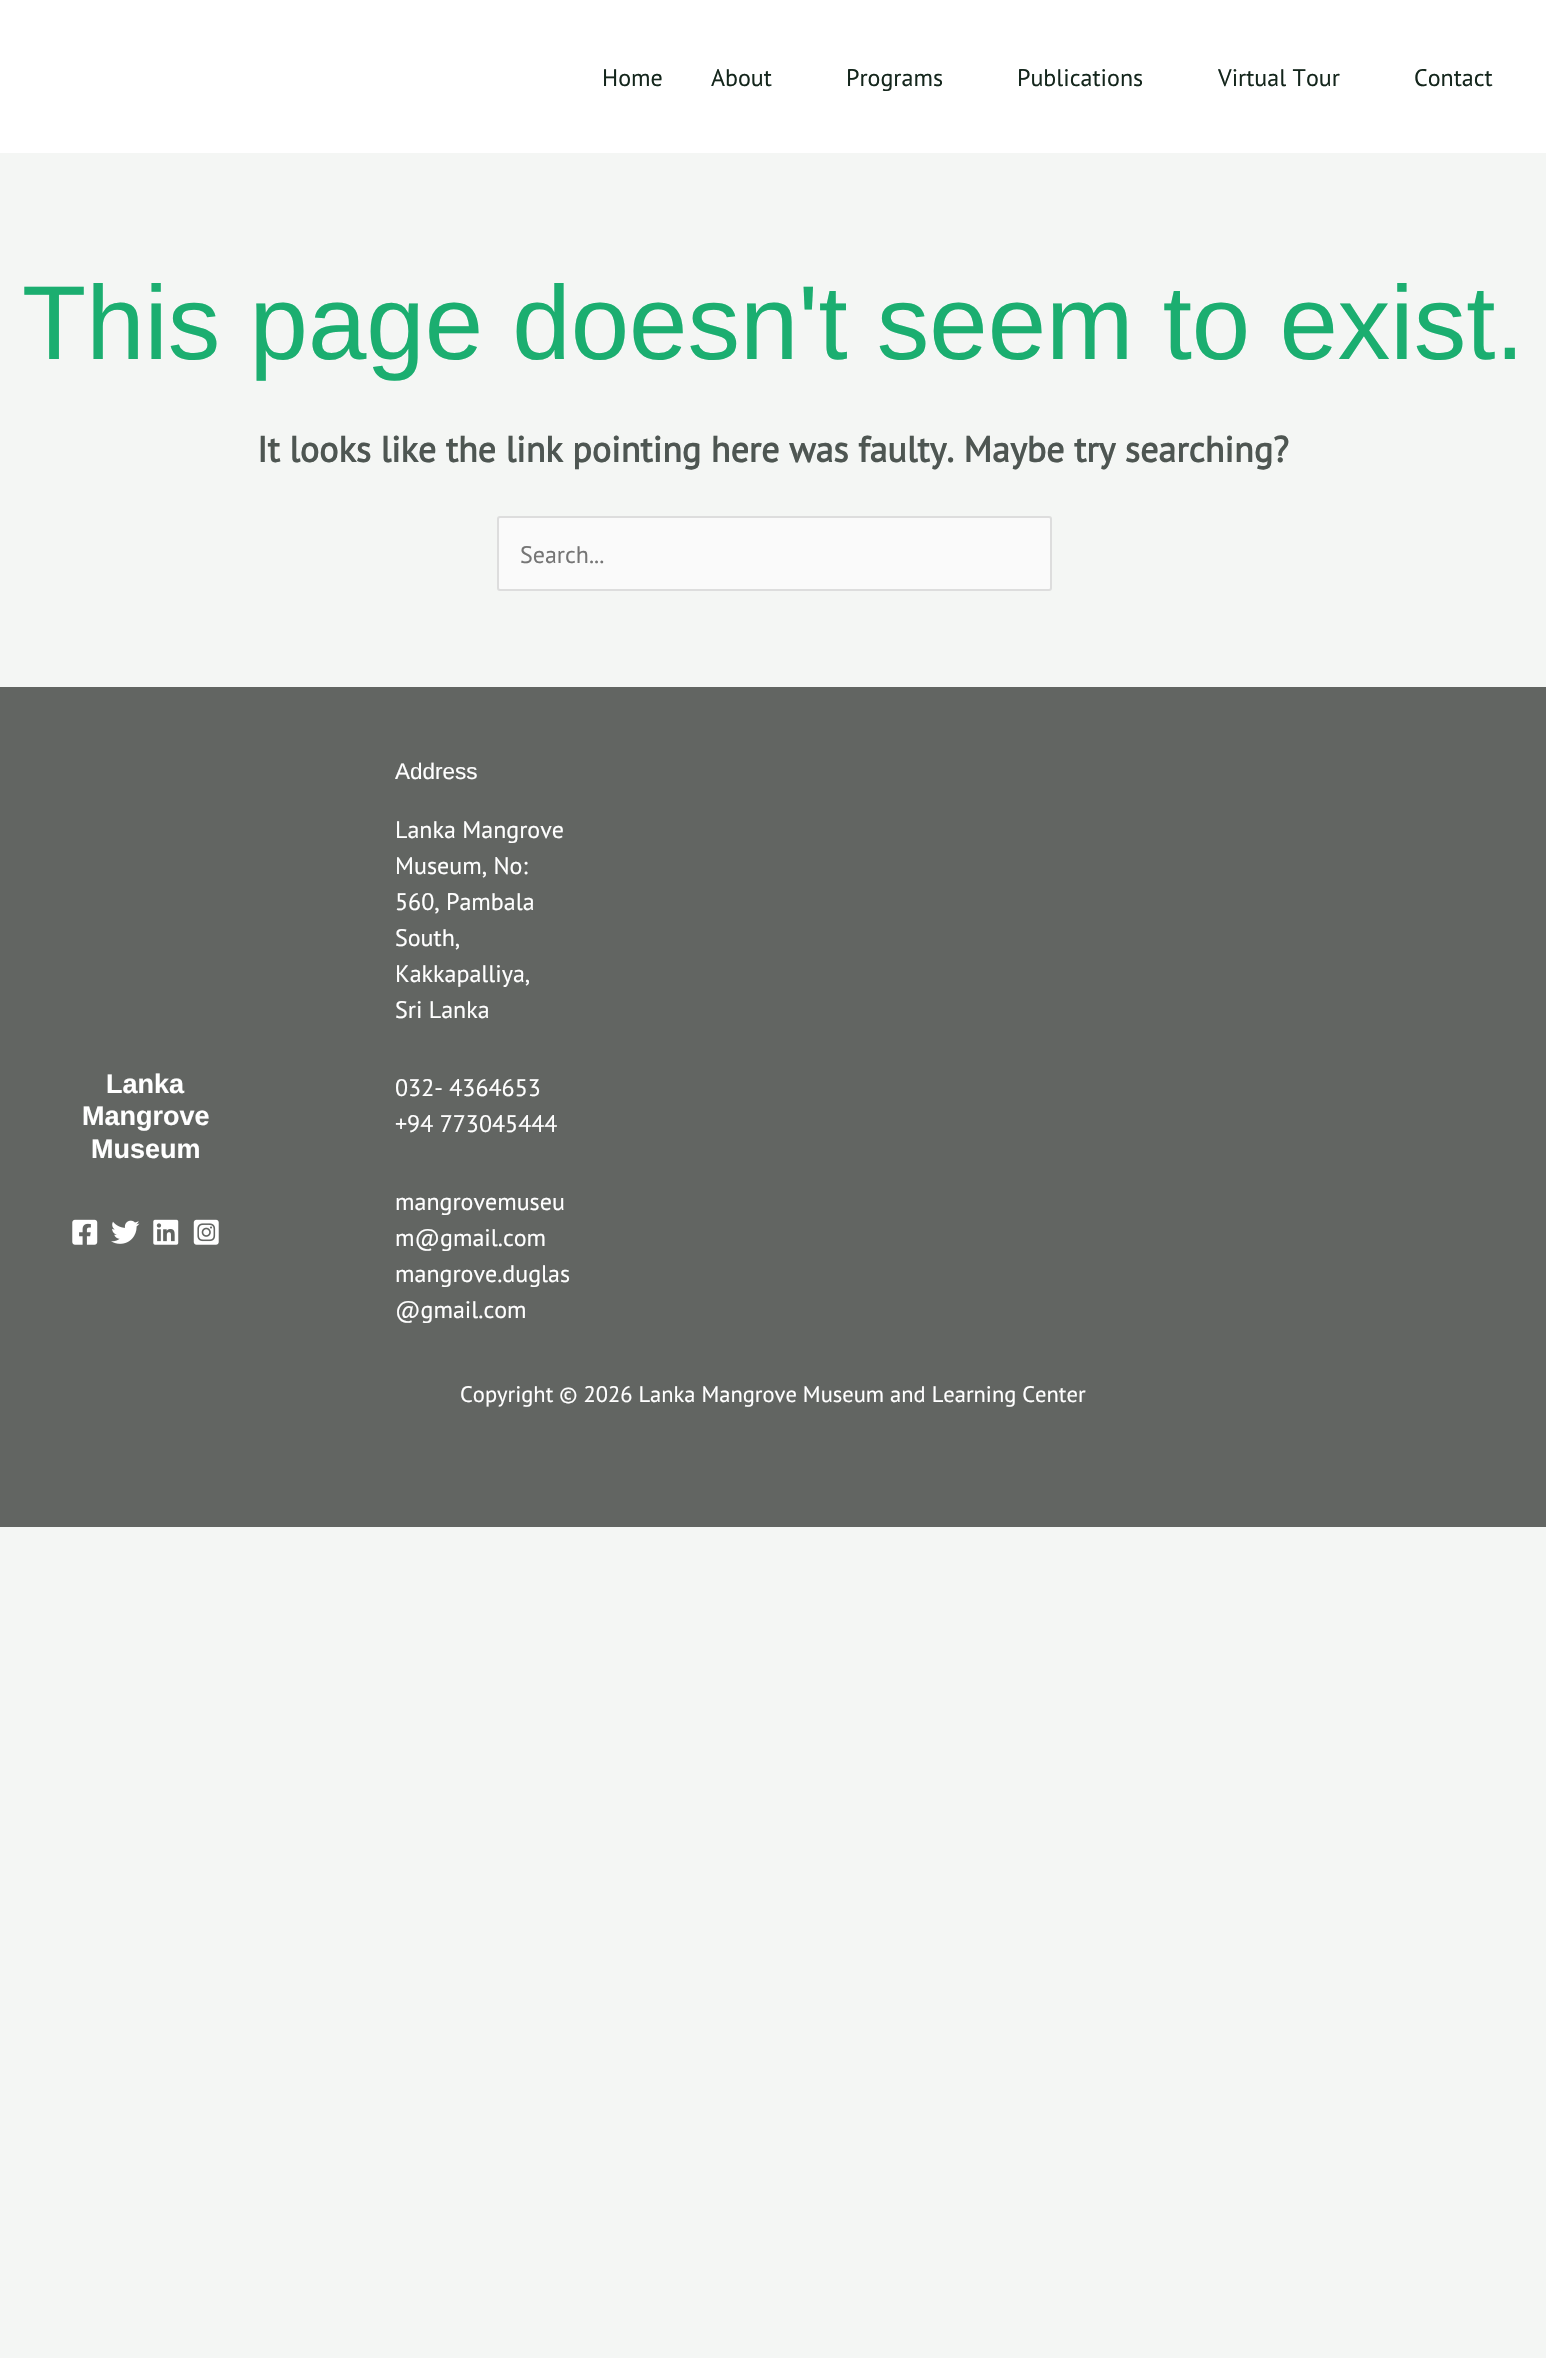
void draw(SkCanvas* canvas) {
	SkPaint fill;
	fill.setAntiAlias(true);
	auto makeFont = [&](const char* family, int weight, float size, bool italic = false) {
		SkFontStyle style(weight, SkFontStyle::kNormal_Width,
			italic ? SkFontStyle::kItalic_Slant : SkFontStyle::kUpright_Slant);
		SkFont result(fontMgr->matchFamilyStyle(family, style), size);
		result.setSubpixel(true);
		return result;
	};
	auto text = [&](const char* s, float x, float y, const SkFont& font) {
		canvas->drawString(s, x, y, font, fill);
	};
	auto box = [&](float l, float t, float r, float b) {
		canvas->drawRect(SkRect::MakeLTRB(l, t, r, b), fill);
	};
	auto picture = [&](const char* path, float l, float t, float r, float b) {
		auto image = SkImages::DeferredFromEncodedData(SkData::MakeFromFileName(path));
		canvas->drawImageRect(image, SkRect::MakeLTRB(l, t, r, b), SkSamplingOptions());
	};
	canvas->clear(0xFFF4F6F4);
	fill.setColor(0xFFFFFFFF);
	box(0, 0, 1546, 153);
	fill.setColor(0xFFFAFAFA);
	canvas->drawRoundRect(SkRect::MakeLTRB(498, 517, 1051, 590), 2, 2, fill);
	fill.setStyle(SkPaint::kStroke_Style);
	fill.setStrokeWidth(2);
	fill.setColor(0xFFDDDDDD);
	canvas->drawRoundRect(SkRect::MakeLTRB(498, 517, 1051, 590), 2, 2, fill);
	fill.setStyle(SkPaint::kFill_Style);
	fill.setColor(0xFF626562);
	box(0, 687, 1546, 1527);
	picture("image0.png", 72, 1219, 98, 1245);
	picture("image1.png", 111, 1220, 140, 1244);
	picture("image2.png", 153, 1219, 179, 1245);
	picture("image3.png", 193, 1219, 219, 1245);
	auto font1 = makeFont("PT Sans", 400, 24);
	fill.setColor(0xFF14261C);
	text("Home", 602, 86, font1);
	text("About", 711, 86, font1);
	text("Programs", 846, 86, font1);
	text("Publications", 1017, 86, font1);
	text("Virtual Tour", 1218, 86, font1);
	text("Contact", 1414, 86, font1);
	auto font2 = makeFont("Liberation Sans", 400, 105);
	fill.setColor(0xFF1BAE70);
	text("This page doesn't seem to exist.", 22, 359, font2);
	auto font3 = makeFont("PT Sans", 700, 36);
	fill.setColor(0xFF4E5652);
	text("It looks like the link pointing here was faulty. Maybe try searching?", 257, 462, font3);
	fill.setColor(0xFF757575);
	text("Search...", 520, 563, font1);
	auto font4 = makeFont("Liberation Sans", 700, 27);
	fill.setColor(0xFFFFFFFF);
	text("Lanka", 106, 1093, font4);
	text("Mangrove", 82, 1125, font4);
	text("Museum", 91, 1158, font4);
	auto font5 = makeFont("Liberation Sans", 400, 22.5f);
	text("Address", 395, 779, font5);
	text("Lanka Mangrove", 395, 838, font1);
	text("Museum, No:", 395, 874, font1);
	text("560, Pambala", 395, 910, font1);
	text("South,", 395, 946, font1);
	text("Kakkapalliya,", 395, 982, font1);
	text("Sri Lanka", 395, 1018, font1);
	text("032- 4364653", 395, 1096, font1);
	text("+94 773045444", 395, 1132, font1);
	text("mangrovemuseu", 395, 1210, font1);
	text("m@gmail.com", 395, 1246, font1);
	text("mangrove.duglas", 395, 1282, font1);
	text("@gmail.com", 395, 1318, font1);
	auto font6 = makeFont("PT Sans", 400, 22.5f);
	text("Copyright © 2026 Lanka Mangrove Museum and Learning Center", 460, 1402, font6);
}
